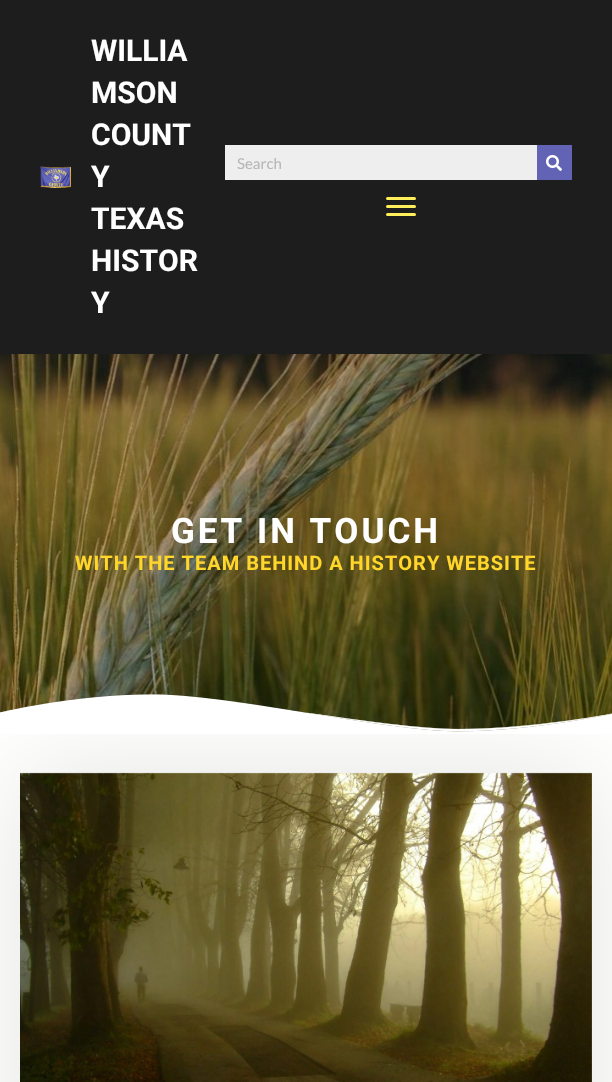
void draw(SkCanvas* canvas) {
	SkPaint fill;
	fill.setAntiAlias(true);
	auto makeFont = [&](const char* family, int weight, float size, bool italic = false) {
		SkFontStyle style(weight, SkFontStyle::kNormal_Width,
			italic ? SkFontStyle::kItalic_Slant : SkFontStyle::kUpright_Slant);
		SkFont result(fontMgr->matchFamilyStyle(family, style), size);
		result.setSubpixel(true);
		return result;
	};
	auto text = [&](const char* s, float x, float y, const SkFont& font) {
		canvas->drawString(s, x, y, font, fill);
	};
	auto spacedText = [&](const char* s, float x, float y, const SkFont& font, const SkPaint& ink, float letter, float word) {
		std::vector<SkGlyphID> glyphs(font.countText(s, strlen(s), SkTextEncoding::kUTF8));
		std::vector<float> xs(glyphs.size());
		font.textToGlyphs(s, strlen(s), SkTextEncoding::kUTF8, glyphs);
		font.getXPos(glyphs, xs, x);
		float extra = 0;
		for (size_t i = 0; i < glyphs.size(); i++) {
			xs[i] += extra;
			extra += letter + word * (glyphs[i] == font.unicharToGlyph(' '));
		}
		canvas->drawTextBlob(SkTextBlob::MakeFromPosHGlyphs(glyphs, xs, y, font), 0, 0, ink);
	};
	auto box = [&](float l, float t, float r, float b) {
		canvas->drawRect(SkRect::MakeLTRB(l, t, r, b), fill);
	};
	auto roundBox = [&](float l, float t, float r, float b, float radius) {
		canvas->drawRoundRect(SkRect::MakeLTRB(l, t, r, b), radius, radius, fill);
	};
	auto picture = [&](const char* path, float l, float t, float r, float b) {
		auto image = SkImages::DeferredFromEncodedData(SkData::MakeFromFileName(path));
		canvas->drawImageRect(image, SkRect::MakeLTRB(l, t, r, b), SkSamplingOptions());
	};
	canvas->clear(0xFFFFFFFF);
	fill.setColor(0xFF1D1D1D);
	box(0, 0, 612, 354);
	fill.setColor(0xFFEEEEEE);
	box(225, 145, 537, 180);
	fill.setColor(0xFF6363B5);
	box(537, 145, 572, 180);
	picture("image0.png", 546, 155, 562, 171);
	fill.setColor(0xFFFFEF5A);
	roundBox(386, 205, 416, 208, 1.5f);
	roundBox(386, 197, 416, 200, 1.5f);
	roundBox(386, 213, 416, 216, 1.5f);
	picture("image1.png", 40, 166, 71, 188);
	picture("image2.png", 0, 354, 612, 732);
	fill.setColor(0x1C0C0500);
	fill.setMaskFilter(SkMaskFilter::MakeBlur(kNormal_SkBlurStyle, 50));
	canvas->drawRect(SkRect::MakeLTRB(20, 773, 592, 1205), fill);
	fill.setMaskFilter(nullptr);
	picture("image3.png", 0, 694, 612, 734);
	picture("image4.png", 20, 772, 592, 1082);
	auto font1 = makeFont("Roboto", 700, 30);
	fill.setColor(0xFFFFFFFF);
	text("WILLIA", 91, 61, font1);
	text("MSON", 91, 103, font1);
	text("COUNT", 91, 145, font1);
	text("Y", 91, 187, font1);
	text("TEXAS", 91, 229, font1);
	text("HISTOR", 91, 271, font1);
	text("Y", 91, 313, font1);
	auto font2 = makeFont("Lato", 400, 15);
	fill.setColor(0xFFB7B7B7);
	text("Search", 237, 169, font2);
	auto font3 = makeFont("Roboto", 700, 35);
	fill.setColor(0xFFFFFFFF);
	spacedText("GET IN TOUCH", 171, 543, font3, fill, 3, 0);
	auto font4 = makeFont("Roboto", 700, 20);
	fill.setColor(0xFFFFD629);
	spacedText("WITH THE TEAM BEHIND A HISTORY WEBSITE", 75, 570, font4, fill, 1, 0);
}
